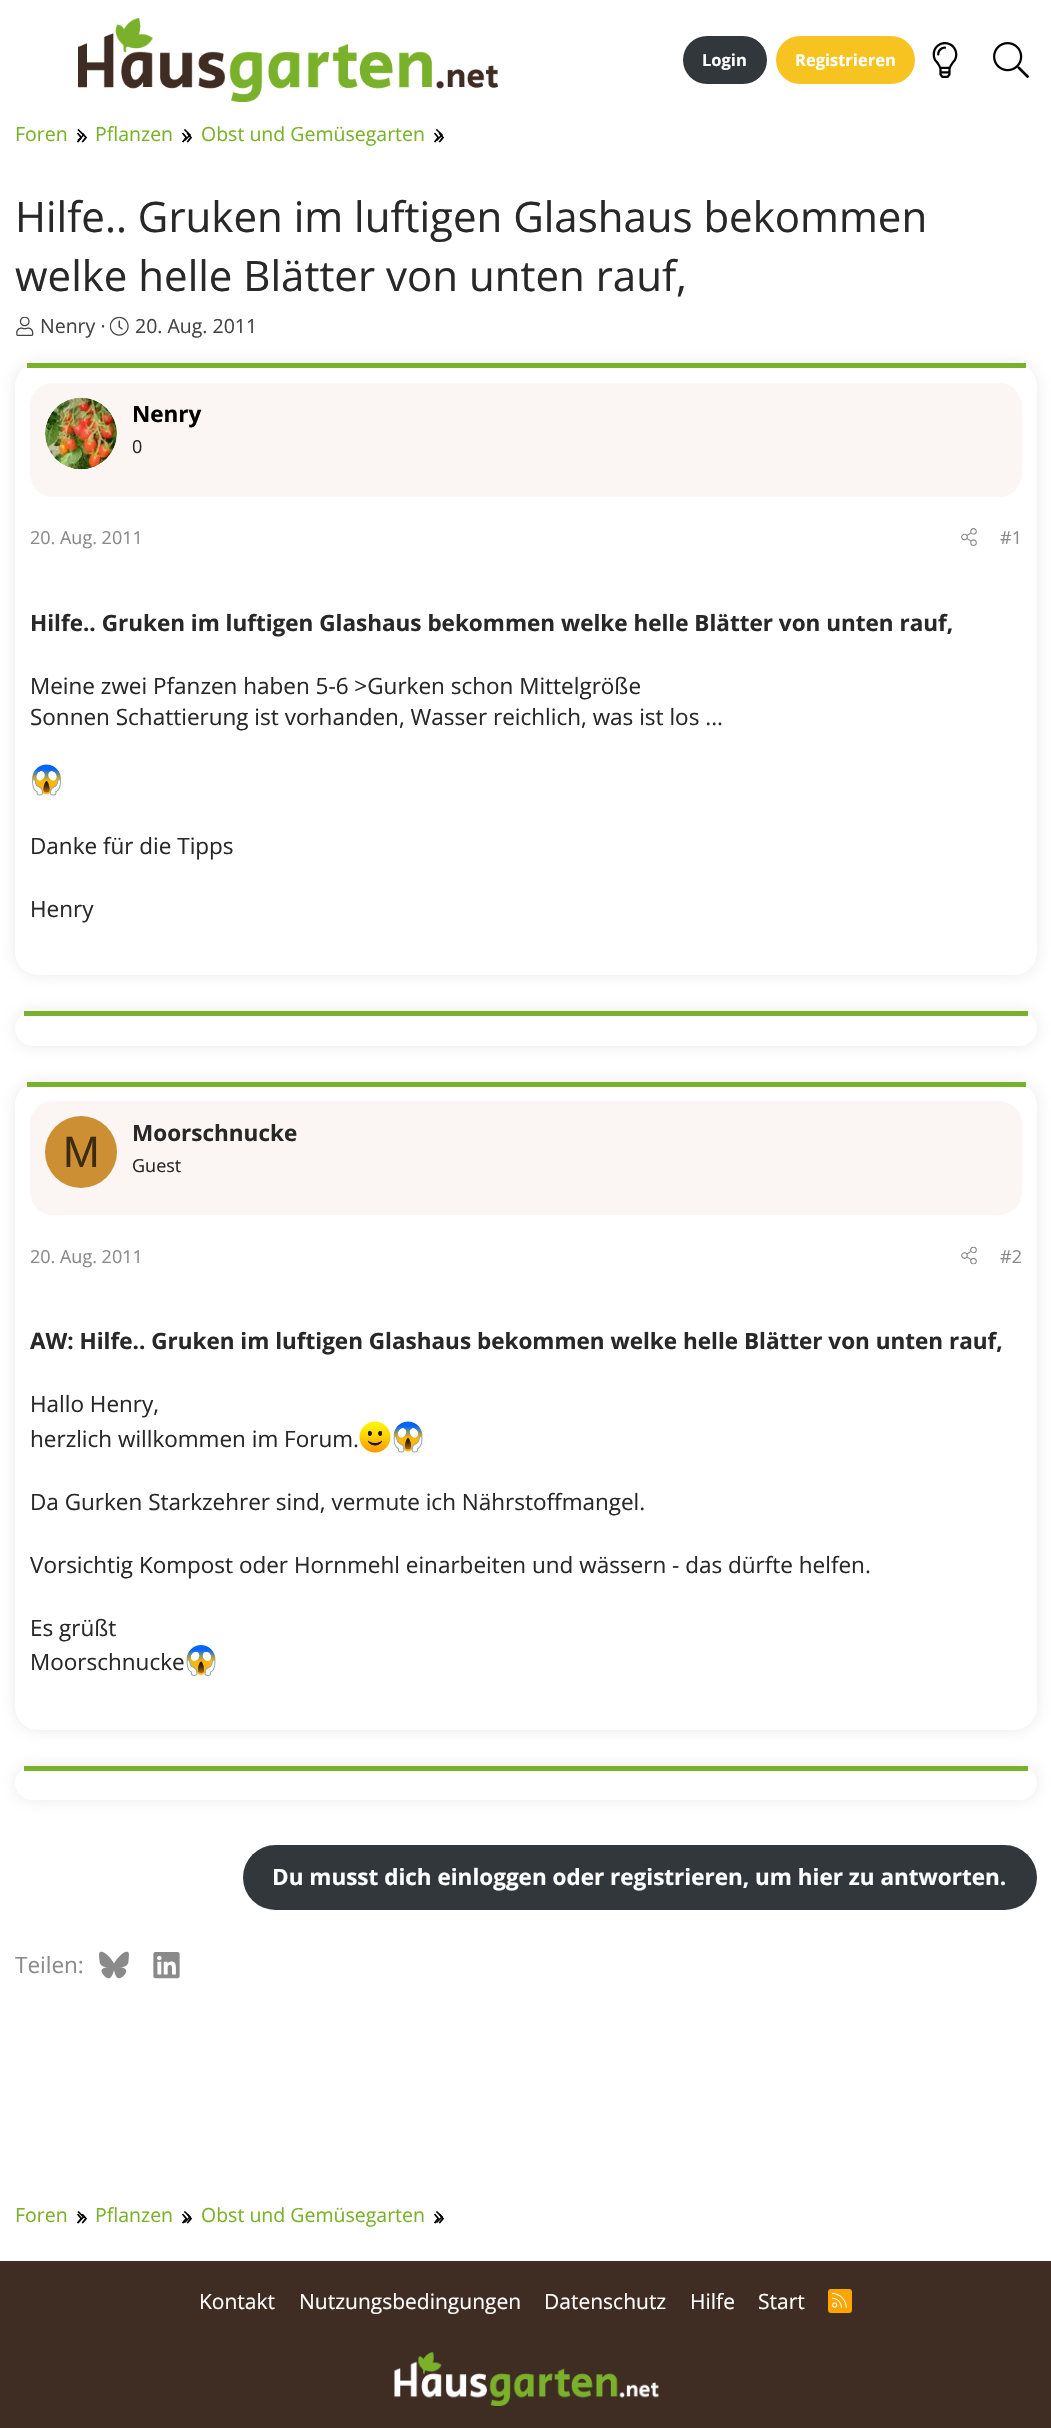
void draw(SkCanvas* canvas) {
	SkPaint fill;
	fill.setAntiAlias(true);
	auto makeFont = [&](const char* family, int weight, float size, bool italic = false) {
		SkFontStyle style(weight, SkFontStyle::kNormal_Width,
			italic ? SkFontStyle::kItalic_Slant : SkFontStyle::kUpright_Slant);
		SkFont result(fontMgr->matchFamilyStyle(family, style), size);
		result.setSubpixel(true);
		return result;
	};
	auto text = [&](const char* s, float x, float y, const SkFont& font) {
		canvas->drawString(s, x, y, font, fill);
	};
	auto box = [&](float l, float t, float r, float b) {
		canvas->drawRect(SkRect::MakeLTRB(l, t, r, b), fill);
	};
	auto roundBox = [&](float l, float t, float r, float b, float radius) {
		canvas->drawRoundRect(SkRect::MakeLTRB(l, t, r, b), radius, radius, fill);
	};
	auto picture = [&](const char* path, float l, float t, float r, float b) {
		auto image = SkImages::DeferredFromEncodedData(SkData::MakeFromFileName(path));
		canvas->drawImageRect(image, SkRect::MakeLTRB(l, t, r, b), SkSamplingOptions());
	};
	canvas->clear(0xFFFFFFFF);
	picture("image0.png", 78, 18, 498, 102);
	fill.setColor(0xFF32373C);
	roundBox(683, 36, 767, 84, 24);
	fill.setColor(0xFFF7C321);
	roundBox(776, 36, 915, 84, 24);
	picture("image1.png", 932, 42, 958, 78);
	picture("image2.png", 993, 42, 1029, 78);
	picture("image3.png", 77, 129, 85, 141);
	picture("image4.png", 184, 129, 191, 141);
	picture("image4.png", 436, 129, 443, 141);
	picture("image5.png", 16, 316, 34, 336);
	picture("image6.png", 109, 316, 129, 336);
	fill.setColor(0x4DB5B5B5);
	fill.setMaskFilter(SkMaskFilter::MakeBlur(kNormal_SkBlurStyle, 7.5f));
	canvas->drawRoundRect(SkRect::MakeLTRB(15, 363, 1037, 975), 23, 23, fill);
	fill.setMaskFilter(nullptr);
	fill.setColor(0xFFFFFFFF);
	roundBox(15, 363, 1037, 975, 23);
	fill.setColor(0xFF79B22A);
	box(27, 363, 1026, 368);
	fill.setColor(0xFFFBF6F4);
	roundBox(30, 383, 1022, 497, 23);
	fill.setColor(0xFFFFFFFF);
	canvas->drawCircle(81, 434, 36, fill);
	picture("image7.png", 45, 397, 117, 470);
	picture("image8.png", 961, 528, 977, 546);
	picture("image9.png", 32, 764, 61, 796);
	fill.setColor(0x4DB5B5B5);
	fill.setMaskFilter(SkMaskFilter::MakeBlur(kNormal_SkBlurStyle, 7.5f));
	canvas->drawRoundRect(SkRect::MakeLTRB(15, 1011, 1037, 1046), 17.5f, 17.5f, fill);
	fill.setMaskFilter(nullptr);
	fill.setColor(0xFFFFFFFF);
	roundBox(15, 1011, 1037, 1046, 17.5f);
	fill.setColor(0xFF79B22A);
	box(24, 1011, 1028, 1016);
	fill.setColor(0x4DB5B5B5);
	fill.setMaskFilter(SkMaskFilter::MakeBlur(kNormal_SkBlurStyle, 7.5f));
	canvas->drawRoundRect(SkRect::MakeLTRB(15, 1082, 1037, 1730), 23, 23, fill);
	fill.setMaskFilter(nullptr);
	fill.setColor(0xFFFFFFFF);
	roundBox(15, 1082, 1037, 1730, 23);
	fill.setColor(0xFF79B22A);
	box(27, 1082, 1026, 1087);
	fill.setColor(0xFFFBF6F4);
	roundBox(30, 1101, 1022, 1215, 23);
	fill.setColor(0xFFCC8F33);
	canvas->drawCircle(81, 1152, 36, fill);
	picture("image10.png", 961, 1246, 977, 1265);
	picture("image11.png", 359, 1421, 391, 1453);
	picture("image12.png", 393, 1421, 423, 1453);
	picture("image13.png", 186, 1645, 216, 1676);
	fill.setColor(0x4DB5B5B5);
	fill.setMaskFilter(SkMaskFilter::MakeBlur(kNormal_SkBlurStyle, 7.5f));
	canvas->drawRoundRect(SkRect::MakeLTRB(15, 1766, 1037, 1800), 17, 17, fill);
	fill.setMaskFilter(nullptr);
	fill.setColor(0xFFFFFFFF);
	roundBox(15, 1766, 1037, 1800, 17);
	fill.setColor(0xFF79B22A);
	box(24, 1766, 1028, 1771);
	fill.setColor(0xFF32373C);
	roundBox(243, 1845, 1037, 1910, 32.5f);
	picture("image14.png", 99, 1951, 129, 1979);
	picture("image15.png", 153, 1952, 180, 1979);
	picture("image3.png", 77, 2211, 85, 2223);
	picture("image4.png", 184, 2211, 191, 2223);
	picture("image4.png", 436, 2211, 443, 2223);
	fill.setColor(0xFF3F2C23);
	box(0, 2261, 1051, 2428);
	fill.setColor(0xFFFFA500);
	roundBox(828, 2289, 852, 2313, 3);
	picture("image16.png", 832, 2293, 847, 2308);
	picture("image17.png", 394, 2352, 659, 2406);
	auto font1 = makeFont("Open Sans", 700, 16.5f);
	fill.setColor(0xFFFFFFFF);
	text("Login", 702, 66, font1);
	text("Registrieren", 795, 66, font1);
	auto font2 = makeFont("Open Sans", 400, 19.5f);
	fill.setColor(0xFF79B22A);
	text("Foren", 15, 141, font2);
	auto font3 = makeFont("Open Sans", 400, 24);
	fill.setColor(0xFF000000);
	text("»", 76, 144, font3);
	fill.setColor(0xFF79B22A);
	text("Pflanzen", 95, 141, font2);
	fill.setColor(0xFF000000);
	text("»", 181, 144, font3);
	fill.setColor(0xFF79B22A);
	text("Obst und Gemüsegarten", 201, 141, font2);
	fill.setColor(0xFF000000);
	text("»", 433, 144, font3);
	auto font4 = makeFont("Open Sans", 400, 42);
	fill.setColor(0xFF282828);
	text("Hilfe.. Gruken im luftigen Glashaus bekommen", 15, 232, font4);
	text("welke helle Blätter von unten rauf,", 15, 291, font4);
	fill.setColor(0xFF434343);
	text("Nenry ·", 40, 333, font2);
	text("20. Aug. 2011", 135, 333, font2);
	auto font5 = makeFont("Open Sans", 700, 22.5f);
	fill.setColor(0xFF000000);
	text("Nenry", 132, 422, font5);
	auto font6 = makeFont("Open Sans", 400, 18);
	fill.setColor(0xFF282828);
	text("0", 132, 453, font6);
	fill.setColor(0xFF8A8A8A);
	text("20. Aug. 2011", 30, 544, font6);
	text("#1", 1000, 544, font6);
	fill.setColor(0xFF282828);
	text("Hilfe.. Gruken im luftigen Glashaus bekommen welke helle Blätter von unten rauf,", 30, 631, font5);
	auto font7 = makeFont("Open Sans", 400, 22.5f);
	text("Meine zwei Pfanzen haben 5-6 >Gurken schon Mittelgröße", 30, 694, font7);
	text("Sonnen Schattierung ist vorhanden, Wasser reichlich, was ist los ...", 30, 725, font7);
	text("Danke für die Tipps", 30, 854, font7);
	text("Henry", 30, 917, font7);
	auto font8 = makeFont("Liberation Sans", 400, 44);
	fill.setColor(0xFF3D2B0F);
	text("M", 63, 1167, font8);
	fill.setColor(0xFF282828);
	text("Moorschnucke", 132, 1141, font5);
	text("Guest", 132, 1172, font6);
	fill.setColor(0xFF8A8A8A);
	text("20. Aug. 2011", 30, 1263, font6);
	text("#2", 1000, 1263, font6);
	fill.setColor(0xFF282828);
	text("AW: Hilfe.. Gruken im luftigen Glashaus bekommen welke helle Blätter von unten rauf,", 30, 1349, font5);
	text("Hallo Henry,", 30, 1412, font7);
	text("herzlich willkommen im Forum.", 30, 1447, font7);
	text("Da Gurken Starkzehrer sind, vermute ich Nährstoffmangel.", 30, 1510, font7);
	text("Vorsichtig Kompost oder Hornmehl einarbeiten und wässern - das dürfte helfen.", 30, 1573, font7);
	text("Es grüßt", 30, 1636, font7);
	text("Moorschnucke", 30, 1670, font7);
	fill.setColor(0xFFFFFFFF);
	text("Du musst dich einloggen oder registrieren, um hier zu antworten.", 272, 1885, font5);
	fill.setColor(0xFF8A8A8A);
	text("Teilen:", 15, 1973, font7);
	fill.setColor(0xFF79B22A);
	text("Foren", 15, 2222, font2);
	fill.setColor(0xFF000000);
	text("»", 76, 2225, font3);
	fill.setColor(0xFF79B22A);
	text("Pflanzen", 95, 2222, font2);
	fill.setColor(0xFF000000);
	text("»", 181, 2225, font3);
	fill.setColor(0xFF79B22A);
	text("Obst und Gemüsegarten", 201, 2222, font2);
	fill.setColor(0xFF000000);
	text("»", 433, 2225, font3);
	auto font9 = makeFont("Open Sans", 400, 21);
	fill.setColor(0xFFFFFFFF);
	text("Kontakt", 199, 2309, font9);
	text("Nutzungsbedingungen", 299, 2309, font9);
	text("Datenschutz", 544, 2309, font9);
	text("Hilfe", 690, 2309, font9);
	text("Start", 758, 2309, font9);
}
